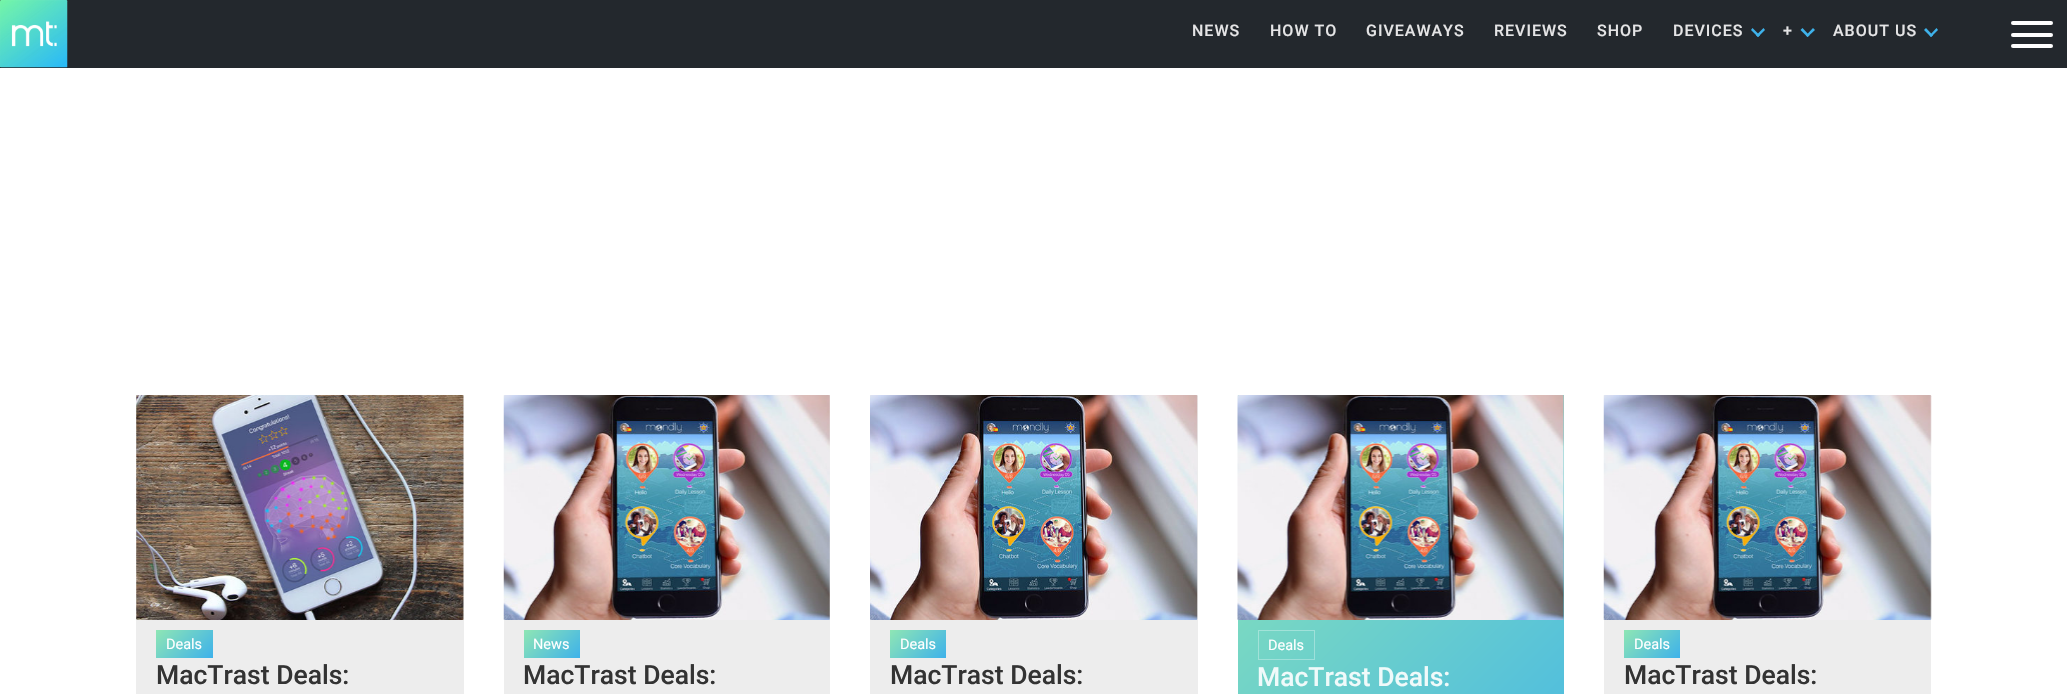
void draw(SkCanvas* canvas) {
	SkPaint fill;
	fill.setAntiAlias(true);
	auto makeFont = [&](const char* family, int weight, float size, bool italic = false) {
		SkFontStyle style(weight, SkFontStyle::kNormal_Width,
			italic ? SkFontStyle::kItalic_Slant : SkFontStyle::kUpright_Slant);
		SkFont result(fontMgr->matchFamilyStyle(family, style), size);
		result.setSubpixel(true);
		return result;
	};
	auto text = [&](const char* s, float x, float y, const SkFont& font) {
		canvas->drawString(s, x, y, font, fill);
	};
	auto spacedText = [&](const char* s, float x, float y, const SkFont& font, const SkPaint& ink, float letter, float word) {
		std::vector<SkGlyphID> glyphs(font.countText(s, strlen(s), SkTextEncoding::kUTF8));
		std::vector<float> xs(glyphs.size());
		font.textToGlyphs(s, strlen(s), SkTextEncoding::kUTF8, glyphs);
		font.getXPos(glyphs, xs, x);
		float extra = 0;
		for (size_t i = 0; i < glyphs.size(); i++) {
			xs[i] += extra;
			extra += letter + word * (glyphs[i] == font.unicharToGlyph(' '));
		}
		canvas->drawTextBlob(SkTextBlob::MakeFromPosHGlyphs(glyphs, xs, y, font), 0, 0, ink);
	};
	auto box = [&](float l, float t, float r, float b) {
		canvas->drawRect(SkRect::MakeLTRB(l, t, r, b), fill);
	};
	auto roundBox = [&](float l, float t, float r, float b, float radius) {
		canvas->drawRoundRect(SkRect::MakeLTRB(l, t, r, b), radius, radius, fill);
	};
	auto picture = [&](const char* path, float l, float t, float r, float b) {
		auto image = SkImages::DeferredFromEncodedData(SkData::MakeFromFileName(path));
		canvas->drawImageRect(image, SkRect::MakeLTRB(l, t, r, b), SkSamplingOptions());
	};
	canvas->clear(0xFFFFFFFF);
	fill.setColor(0xFF23282D);
	box(0, 0, 2067, 68);
	picture("image0.png", 0, 0, 68, 68);
	fill.setColor(0xFF3EB2EA);
	canvas->drawPath(SkPathBuilder().moveTo(1756, 35.5f).lineTo(1763.5f, 28).lineTo(1765, 30).lineTo(1758, 37).close().detach(), fill);
	canvas->drawPath(SkPathBuilder().moveTo(1751, 30).lineTo(1752.5f, 28).lineTo(1760, 35.5f).lineTo(1758, 37).close().detach(), fill);
	canvas->drawPath(SkPathBuilder().moveTo(1806, 35.5f).lineTo(1813, 28).lineTo(1815, 30).lineTo(1807.5f, 37).close().detach(), fill);
	canvas->drawPath(SkPathBuilder().moveTo(1800.5f, 30).lineTo(1802.5f, 28).lineTo(1809.5f, 35.5f).lineTo(1807.5f, 37).close().detach(), fill);
	canvas->drawPath(SkPathBuilder().moveTo(1929.5f, 35.5f).lineTo(1936.5f, 28).lineTo(1938, 30).lineTo(1931, 37).close().detach(), fill);
	canvas->drawPath(SkPathBuilder().moveTo(1924, 30).lineTo(1926, 28).lineTo(1933, 35.5f).lineTo(1931, 37).close().detach(), fill);
	fill.setColor(0xFFFFFFFF);
	roundBox(2011, 21, 2053, 25, 2);
	roundBox(2011, 33, 2053, 37, 2);
	roundBox(2011, 44, 2053, 48, 2);
	fill.setColor(0xFFEDEDED);
	box(136, 395, 464, 694);
	picture("image1.png", 136, 395, 464, 620);
	{
		const SkColor colors[] = {0xFF8FE6B4, 0xFF3EB2EA};
		const float stops[] = {0, 1};
		const SkPoint ends[] = {{163, 623}, {205, 665}};
		fill.setShader(SkGradientShader::MakeLinear(ends, colors, stops, 2, SkTileMode::kClamp));
		fill.setAlpha(255);
	}
	box(156, 630, 213, 658);
	fill.setShader(nullptr);
	fill.setColor(0xFFEDEDED);
	box(504, 395, 830, 694);
	picture("image2.png", 503, 395, 830, 620);
	{
		const SkColor colors[] = {0xFF8FE6B4, 0xFF3EB2EA};
		const float stops[] = {0, 1};
		const SkPoint ends[] = {{531, 623}, {573, 665}};
		fill.setShader(SkGradientShader::MakeLinear(ends, colors, stops, 2, SkTileMode::kClamp));
		fill.setAlpha(255);
	}
	box(524, 630, 580, 658);
	fill.setShader(nullptr);
	fill.setColor(0xFFEDEDED);
	box(870, 395, 1198, 694);
	picture("image3.png", 870, 395, 1198, 620);
	{
		const SkColor colors[] = {0xFF8FE6B4, 0xFF3EB2EA};
		const float stops[] = {0, 1};
		const SkPoint ends[] = {{897, 623}, {939, 665}};
		fill.setShader(SkGradientShader::MakeLinear(ends, colors, stops, 2, SkTileMode::kClamp));
		fill.setAlpha(255);
	}
	box(890, 630, 946, 658);
	{
		const SkColor colors[] = {0xFF8FE6B4, 0xFF3EB2EA};
		const float stops[] = {0, 1};
		const SkPoint ends[] = {{1191, 442}, {1611, 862}};
		fill.setShader(SkGradientShader::MakeLinear(ends, colors, stops, 2, SkTileMode::kClamp));
		fill.setAlpha(255);
	}
	box(1238, 395, 1564, 694);
	picture("image4.png", 1237, 395, 1564, 620);
	fill.setStyle(SkPaint::kStroke_Style);
	fill.setStrokeWidth(1);
	fill.setShader(nullptr);
	fill.setColor(0x52FFFFFF);
	canvas->drawRect(SkRect::MakeLTRB(1258.5f, 630.5f, 1314.5f, 659.5f), fill);
	fill.setStyle(SkPaint::kFill_Style);
	fill.setColor(0xFFEDEDED);
	box(1604, 395, 1931, 694);
	picture("image5.png", 1603, 395, 1932, 620);
	{
		const SkColor colors[] = {0xFF8FE6B4, 0xFF3EB2EA};
		const float stops[] = {0, 1};
		const SkPoint ends[] = {{1631, 623}, {1673, 665}};
		fill.setShader(SkGradientShader::MakeLinear(ends, colors, stops, 2, SkTileMode::kClamp));
		fill.setAlpha(255);
	}
	box(1624, 630, 1680, 658);
	auto font1 = makeFont("Roboto", 500, 16);
	fill.setShader(nullptr);
	fill.setColor(0xFFE5E5E6);
	spacedText("NEWS", 1192, 36, font1, fill, 1, 0);
	spacedText("HOW TO", 1270, 36, font1, fill, 1, 0);
	spacedText("GIVEAWAYS", 1366, 36, font1, fill, 1, 0);
	spacedText("REVIEWS", 1494, 36, font1, fill, 1, 0);
	spacedText("SHOP", 1597, 36, font1, fill, 1, 0);
	spacedText("DEVICES", 1673, 36, font1, fill, 1, 0);
	spacedText("+", 1783, 36, font1, fill, 1, 0);
	spacedText("ABOUT US", 1833, 36, font1, fill, 1, 0);
	auto font2 = makeFont("Roboto", 400, 14.5f);
	fill.setColor(0xFFFFFFFF);
	text("Deals", 166, 649, font2);
	auto font3 = makeFont("Roboto", 500, 26.5f);
	fill.setColor(0xFF333333);
	text("MacTrast Deals:", 156, 684, font3);
	fill.setColor(0xFFFFFFFF);
	text("News", 533, 649, font2);
	fill.setColor(0xFF333333);
	text("MacTrast Deals:", 523, 684, font3);
	fill.setColor(0xFFFFFFFF);
	text("Deals", 900, 649, font2);
	fill.setColor(0xFF333333);
	text("MacTrast Deals:", 890, 684, font3);
	fill.setColor(0xFFFFFFFF);
	text("Deals", 1268, 650, font2);
	fill.setColor(0xFFF0FAFA);
	text("MacTrast Deals:", 1257, 686, font3);
	fill.setColor(0xFFFFFFFF);
	text("Deals", 1634, 649, font2);
	fill.setColor(0xFF333333);
	text("MacTrast Deals:", 1624, 684, font3);
}
